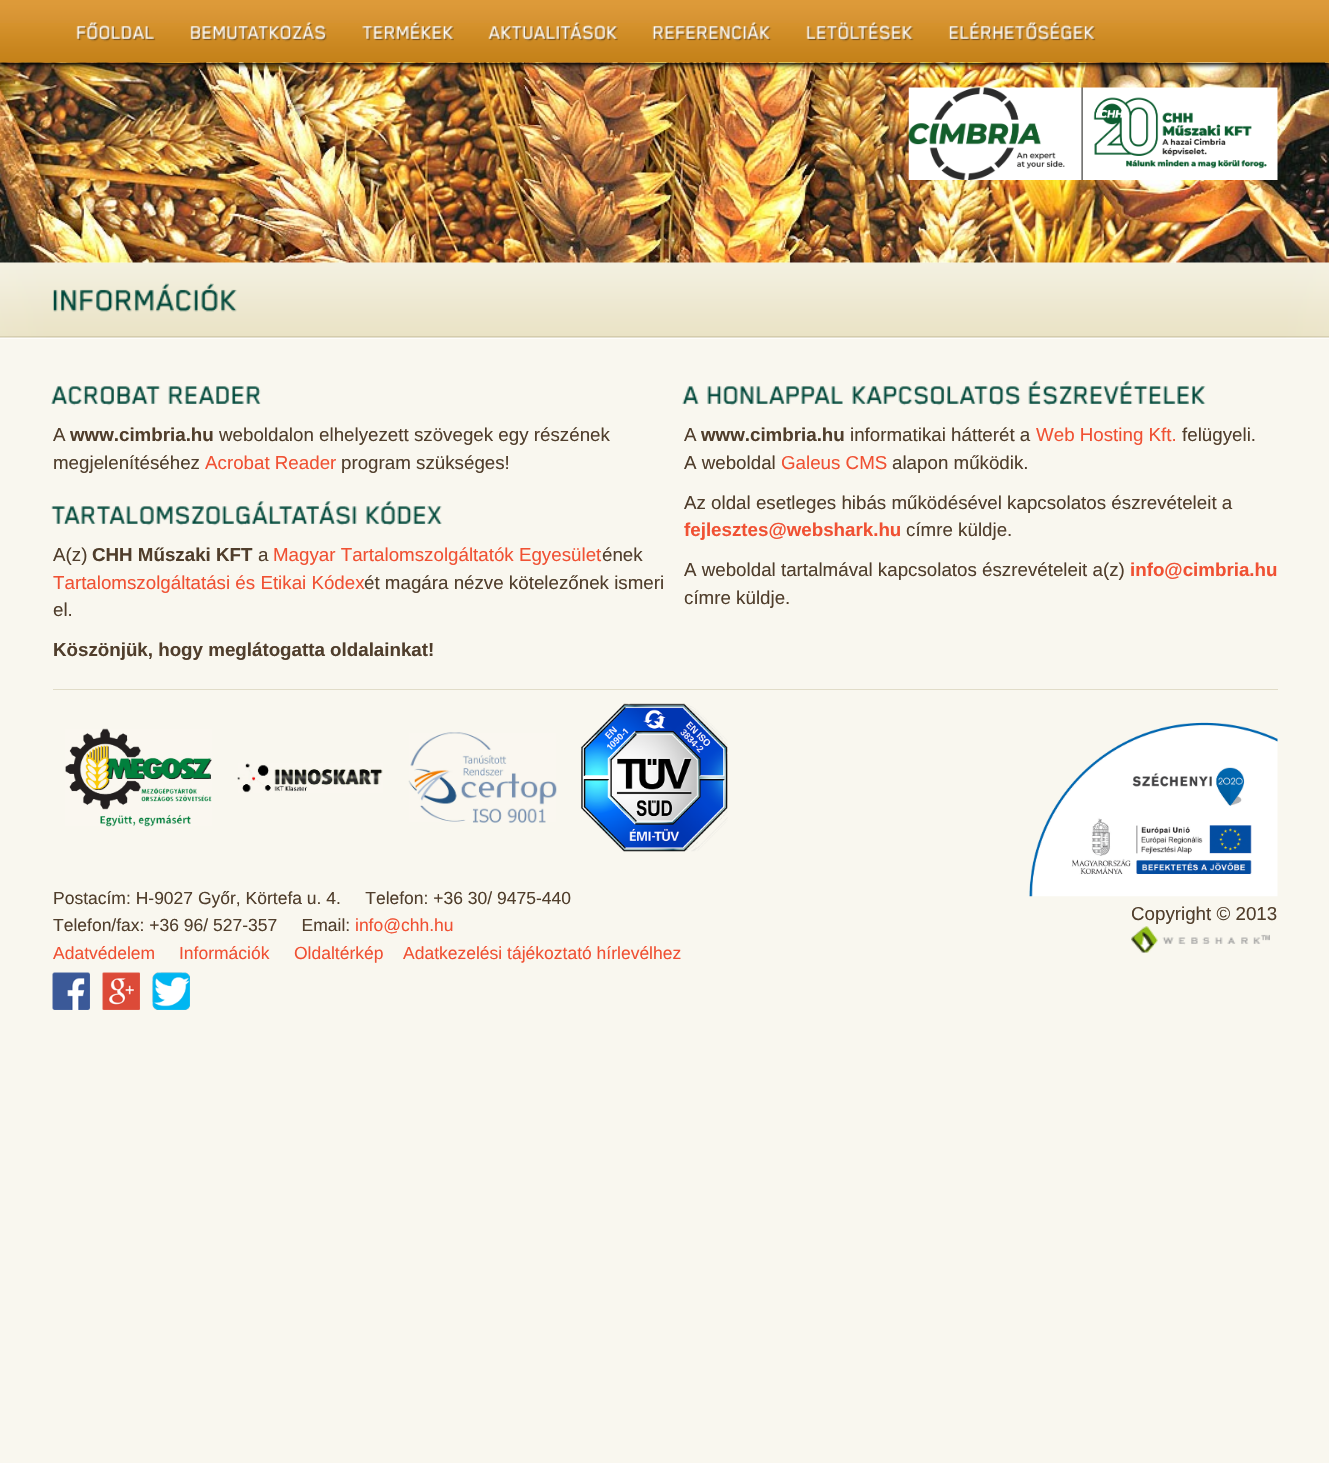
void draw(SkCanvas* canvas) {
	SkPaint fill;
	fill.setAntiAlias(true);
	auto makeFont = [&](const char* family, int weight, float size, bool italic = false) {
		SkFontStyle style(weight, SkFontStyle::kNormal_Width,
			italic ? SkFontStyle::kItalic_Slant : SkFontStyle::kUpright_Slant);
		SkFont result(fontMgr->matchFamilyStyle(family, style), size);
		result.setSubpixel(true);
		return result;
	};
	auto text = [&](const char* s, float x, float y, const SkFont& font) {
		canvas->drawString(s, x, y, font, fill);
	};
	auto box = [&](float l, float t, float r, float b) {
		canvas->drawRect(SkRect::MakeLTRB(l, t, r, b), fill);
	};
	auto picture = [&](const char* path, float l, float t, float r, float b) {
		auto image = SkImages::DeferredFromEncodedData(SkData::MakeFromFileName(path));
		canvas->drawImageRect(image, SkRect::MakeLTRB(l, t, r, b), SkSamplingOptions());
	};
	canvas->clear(0xFFF9F7EF);
	picture("image0.png", 0, 0, 1329, 23);
	picture("image1.png", 0, 262, 1329, 339);
	picture("image3.png", 0, 62, 1329, 263);
	canvas->save();
	canvas->clipPath(SkPathBuilder(SkPathFillType::kEvenOdd).moveTo(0, 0).lineTo(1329, 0).lineTo(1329, 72).lineTo(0, 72).close().moveTo(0, 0).lineTo(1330, 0).lineTo(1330, 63).lineTo(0, 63).close().detach(), true);
	fill.setColor(0xFF000000);
	fill.setMaskFilter(SkMaskFilter::MakeBlur(kNormal_SkBlurStyle, 2));
	canvas->drawRect(SkRect::MakeLTRB(0, 3, 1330, 65), fill);
	fill.setMaskFilter(nullptr);
	canvas->restore();
	picture("image2.png", 0, 23, 1329, 63);
	picture("image4.png", 76, 22, 156, 42);
	picture("image5.png", 190, 22, 327, 42);
	picture("image6.png", 362, 22, 454, 41);
	picture("image7.png", 488, 22, 618, 42);
	picture("image8.png", 652, 22, 772, 42);
	picture("image9.png", 806, 22, 914, 42);
	picture("image10.png", 948, 22, 1096, 42);
	picture("image11.png", 908, 87, 1278, 180);
	picture("image12.png", 53, 283, 237, 312);
	picture("image13.png", 51, 386, 161, 406);
	picture("image14.png", 168, 386, 261, 404);
	picture("image15.png", 51, 501, 357, 526);
	picture("image16.png", 366, 501, 442, 526);
	picture("image17.png", 682, 386, 699, 404);
	picture("image18.png", 707, 386, 843, 406);
	picture("image19.png", 852, 386, 1021, 406);
	picture("image20.png", 1028, 381, 1206, 406);
	fill.setColor(0xFFE1DCC8);
	box(53, 689, 1278, 690);
	picture("image21.png", 65, 728, 212, 827);
	picture("image22.png", 237, 763, 383, 793);
	picture("image23.png", 408, 732, 557, 823);
	picture("image24.png", 581, 703, 728, 852);
	picture("image25.png", 52, 972, 90, 1010);
	picture("image26.png", 102, 972, 140, 1010);
	picture("image27.png", 152, 972, 190, 1010);
	picture("image28.png", 1029, 722, 1278, 897);
	picture("image29.png", 1131, 926, 1270, 953);
	auto font1 = makeFont("Liberation Sans", 400, 18.75f);
	fill.setColor(0xFF503E2C);
	text("A", 53, 441, font1);
	auto font2 = makeFont("Liberation Sans", 700, 18.75f);
	text("www.cimbria.hu", 70, 441, font2);
	text("weboldalon elhelyezett szövegek egy részének", 219, 441, font1);
	text("megjelenítéséhez", 53, 469, font1);
	fill.setColor(0xFFF05133);
	text("Acrobat Reader", 205, 469, font1);
	fill.setColor(0xFF503E2C);
	text("program szükséges!", 341, 469, font1);
	text("A(z)", 53, 561, font1);
	text("CHH Műszaki KFT", 92, 561, font2);
	text("a", 258, 561, font1);
	fill.setColor(0xFFF05133);
	text("Magyar Tartalomszolgáltatók Egyesület", 273, 561, font1);
	fill.setColor(0xFF503E2C);
	text("ének", 602, 561, font1);
	fill.setColor(0xFFF05133);
	text("Tartalomszolgáltatási és Etikai Kódex", 53, 589, font1);
	fill.setColor(0xFF503E2C);
	text("ét magára nézve kötelezőnek ismeri", 364, 589, font1);
	text("el.", 53, 616, font1);
	text("Köszönjük, hogy meglátogatta oldalainkat!", 53, 656, font2);
	text("A", 684, 441, font1);
	text("www.cimbria.hu", 701, 441, font2);
	text("informatikai hátterét a", 850, 441, font1);
	fill.setColor(0xFFF05133);
	text("Web Hosting Kft.", 1036, 441, font1);
	fill.setColor(0xFF503E2C);
	text("felügyeli.", 1182, 441, font1);
	text("A weboldal", 684, 469, font1);
	fill.setColor(0xFFF05133);
	text("Galeus CMS", 781, 469, font1);
	fill.setColor(0xFF503E2C);
	text("alapon működik.", 892, 469, font1);
	text("Az oldal esetleges hibás működésével kapcsolatos észrevételeit a", 684, 509, font1);
	fill.setColor(0xFFF05133);
	text("fejlesztes@webshark.hu", 684, 536, font2);
	fill.setColor(0xFF503E2C);
	text("címre küldje.", 906, 536, font1);
	text("A weboldal tartalmával kapcsolatos észrevételeit a(z)", 684, 576, font1);
	fill.setColor(0xFFF05133);
	text("info@cimbria.hu", 1130, 576, font2);
	fill.setColor(0xFF503E2C);
	text("címre küldje.", 684, 604, font1);
	auto font3 = makeFont("Liberation Sans", 400, 17.5f);
	text("Postacím: H-9027 Győr, Körtefa u. 4.     Telefon: +36 30/ 9475-440", 53, 904, font3);
	text("Telefon/fax: +36 96/ 527-357     Email:", 53, 931, font3);
	fill.setColor(0xFFF05133);
	text("info@chh.hu", 355, 931, font3);
	text("Adatvédelem", 53, 959, font3);
	text("Információk", 179, 959, font3);
	text("Oldaltérkép", 294, 959, font3);
	text("Adatkezelési tájékoztató hírlevélhez", 403, 959, font3);
	fill.setColor(0xFF503E2C);
	text("Copyright © 2013", 1131, 920, font1);
}
